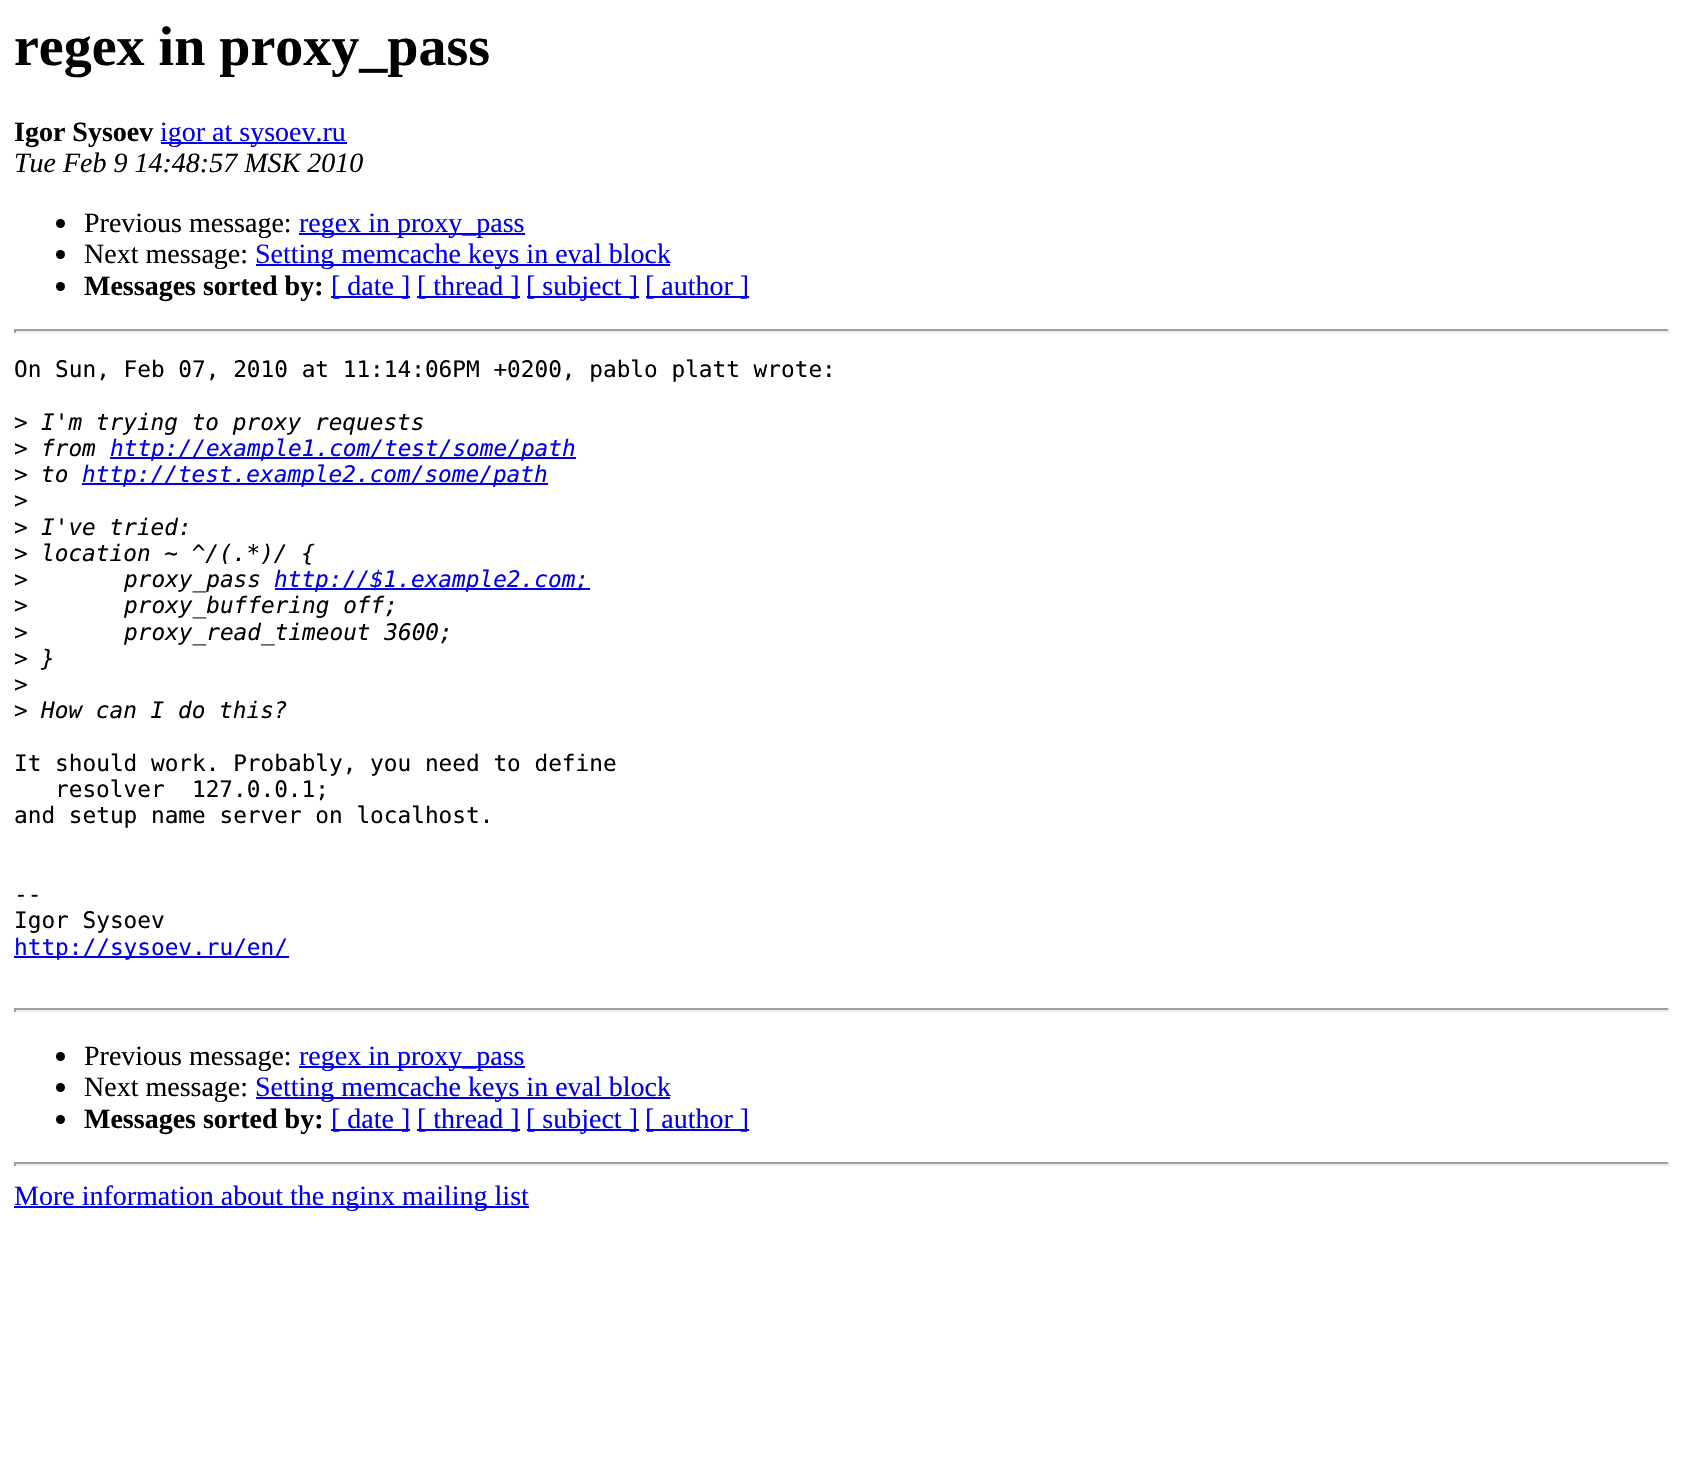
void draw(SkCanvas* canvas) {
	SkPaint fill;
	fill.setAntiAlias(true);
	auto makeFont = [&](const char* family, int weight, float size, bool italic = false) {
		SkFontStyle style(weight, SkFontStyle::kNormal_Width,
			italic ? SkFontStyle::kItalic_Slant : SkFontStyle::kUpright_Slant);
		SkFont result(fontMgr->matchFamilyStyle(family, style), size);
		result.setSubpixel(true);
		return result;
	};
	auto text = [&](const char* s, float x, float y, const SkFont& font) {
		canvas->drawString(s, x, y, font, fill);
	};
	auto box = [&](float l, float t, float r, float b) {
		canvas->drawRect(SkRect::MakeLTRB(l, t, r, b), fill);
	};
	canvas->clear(0xFFFFFFFF);
	fill.setColor(0xFF0000EE);
	box(161, 142, 347, 144);
	fill.setColor(0xFF000000);
	canvas->drawCircle(60.5f, 223.5f, 4.5f, fill);
	fill.setColor(0xFF0000EE);
	box(299, 233, 525, 235);
	fill.setColor(0xFF000000);
	canvas->drawCircle(60.5f, 254.5f, 4.5f, fill);
	fill.setColor(0xFF0000EE);
	box(256, 264, 670, 266);
	fill.setColor(0xFF000000);
	canvas->drawCircle(60.5f, 286.5f, 4.5f, fill);
	fill.setColor(0xFF0000EE);
	box(331, 296, 410, 298);
	box(417, 296, 520, 298);
	box(527, 296, 639, 298);
	box(646, 296, 749, 298);
	fill.setColor(0xFF9F9F9F);
	box(14, 329, 1670, 331);
	fill.setColor(0xFFEEEEEE);
	box(1668, 329, 1670, 333);
	box(14, 331, 1670, 333);
	fill.setColor(0xFF9F9F9F);
	box(14, 329, 16, 333);
	fill.setColor(0xFF0000EE);
	box(110, 457, 576, 459);
	box(82, 483, 548, 485);
	box(275, 588, 590, 590);
	box(14, 956, 289, 958);
	fill.setColor(0xFF9F9F9F);
	box(14, 1008, 1670, 1010);
	fill.setColor(0xFFEEEEEE);
	box(1668, 1008, 1670, 1012);
	box(14, 1010, 1670, 1012);
	fill.setColor(0xFF9F9F9F);
	box(14, 1008, 16, 1012);
	fill.setColor(0xFF000000);
	canvas->drawCircle(60.5f, 1056.5f, 4.5f, fill);
	fill.setColor(0xFF0000EE);
	box(299, 1066, 525, 1068);
	fill.setColor(0xFF000000);
	canvas->drawCircle(60.5f, 1087.5f, 4.5f, fill);
	fill.setColor(0xFF0000EE);
	box(256, 1097, 670, 1099);
	fill.setColor(0xFF000000);
	canvas->drawCircle(60.5f, 1119.5f, 4.5f, fill);
	fill.setColor(0xFF0000EE);
	box(331, 1129, 410, 1131);
	box(417, 1129, 520, 1131);
	box(527, 1129, 639, 1131);
	box(646, 1129, 749, 1131);
	fill.setColor(0xFF9F9F9F);
	box(14, 1162, 1670, 1164);
	fill.setColor(0xFFEEEEEE);
	box(1668, 1162, 1670, 1166);
	box(14, 1164, 1670, 1166);
	fill.setColor(0xFF9F9F9F);
	box(14, 1162, 16, 1166);
	fill.setColor(0xFF0000EE);
	box(14, 1206, 529, 1208);
	auto font1 = makeFont("Liberation Serif", 700, 56);
	fill.setColor(0xFF000000);
	text("regex in proxy_pass", 14, 65, font1);
	auto font2 = makeFont("Liberation Serif", 700, 28);
	text("Igor Sysoev", 14, 141, font2);
	auto font3 = makeFont("Liberation Serif", 400, 28);
	fill.setColor(0xFF0000EE);
	text("igor at sysoev.ru", 160, 141, font3);
	auto font4 = makeFont("Liberation Serif", 400, 28, true);
	fill.setColor(0xFF000000);
	text("Tue Feb 9 14:48:57 MSK 2010", 14, 172, font4);
	text("Previous message:", 84, 232, font3);
	fill.setColor(0xFF0000EE);
	text("regex in proxy_pass", 299, 232, font3);
	fill.setColor(0xFF000000);
	text("Next message:", 84, 263, font3);
	fill.setColor(0xFF0000EE);
	text("Setting memcache keys in eval block", 255, 263, font3);
	fill.setColor(0xFF000000);
	text("Messages sorted by:", 84, 295, font2);
	fill.setColor(0xFF0000EE);
	text("[ date ]", 331, 295, font3);
	text("[ thread ]", 417, 295, font3);
	text("[ subject ]", 526, 295, font3);
	text("[ author ]", 645, 295, font3);
	auto font5 = makeFont("DejaVu Sans Mono", 400, 22.75f);
	fill.setColor(0xFF000000);
	text("On Sun, Feb 07, 2010 at 11:14:06PM +0200, pablo platt wrote:", 14, 377, font5);
	text(">", 14, 430, font5);
	auto font6 = makeFont("DejaVu Sans Mono", 400, 22.75f, true);
	text("I'm trying to proxy requests", 41, 430, font6);
	text(">", 14, 456, font5);
	text("from", 41, 456, font6);
	fill.setColor(0xFF0000EE);
	text("http://example1.com/test/some/path", 110, 456, font6);
	fill.setColor(0xFF000000);
	text(">", 14, 482, font5);
	text("to", 41, 482, font6);
	fill.setColor(0xFF0000EE);
	text("http://test.example2.com/some/path", 82, 482, font6);
	fill.setColor(0xFF000000);
	text(">", 14, 508, font5);
	text(">", 14, 535, font5);
	text("I've tried:", 41, 535, font6);
	text(">", 14, 561, font5);
	text("location ~ ^/(.*)/ {", 41, 561, font6);
	text(">", 14, 587, font5);
	text("proxy_pass", 124, 587, font6);
	fill.setColor(0xFF0000EE);
	text("http://$1.example2.com;", 274, 587, font6);
	fill.setColor(0xFF000000);
	text(">", 14, 613, font5);
	text("proxy_buffering off;", 124, 613, font6);
	text(">", 14, 640, font5);
	text("proxy_read_timeout 3600;", 124, 640, font6);
	text(">", 14, 666, font5);
	text("}", 41, 666, font6);
	text(">", 14, 692, font5);
	text(">", 14, 718, font5);
	text("How can I do this?", 41, 718, font6);
	text("It should work. Probably, you need to define", 14, 771, font5);
	text("resolver  127.0.0.1;", 55, 797, font5);
	text("and setup name server on localhost.", 14, 823, font5);
	text("--", 14, 902, font5);
	text("Igor Sysoev", 14, 928, font5);
	fill.setColor(0xFF0000EE);
	text("http://sysoev.ru/en/", 14, 955, font5);
	fill.setColor(0xFF000000);
	text("Previous message:", 84, 1065, font3);
	fill.setColor(0xFF0000EE);
	text("regex in proxy_pass", 299, 1065, font3);
	fill.setColor(0xFF000000);
	text("Next message:", 84, 1096, font3);
	fill.setColor(0xFF0000EE);
	text("Setting memcache keys in eval block", 255, 1096, font3);
	fill.setColor(0xFF000000);
	text("Messages sorted by:", 84, 1128, font2);
	fill.setColor(0xFF0000EE);
	text("[ date ]", 331, 1128, font3);
	text("[ thread ]", 417, 1128, font3);
	text("[ subject ]", 526, 1128, font3);
	text("[ author ]", 645, 1128, font3);
	text("More information about the nginx mailing list", 14, 1205, font3);
}
